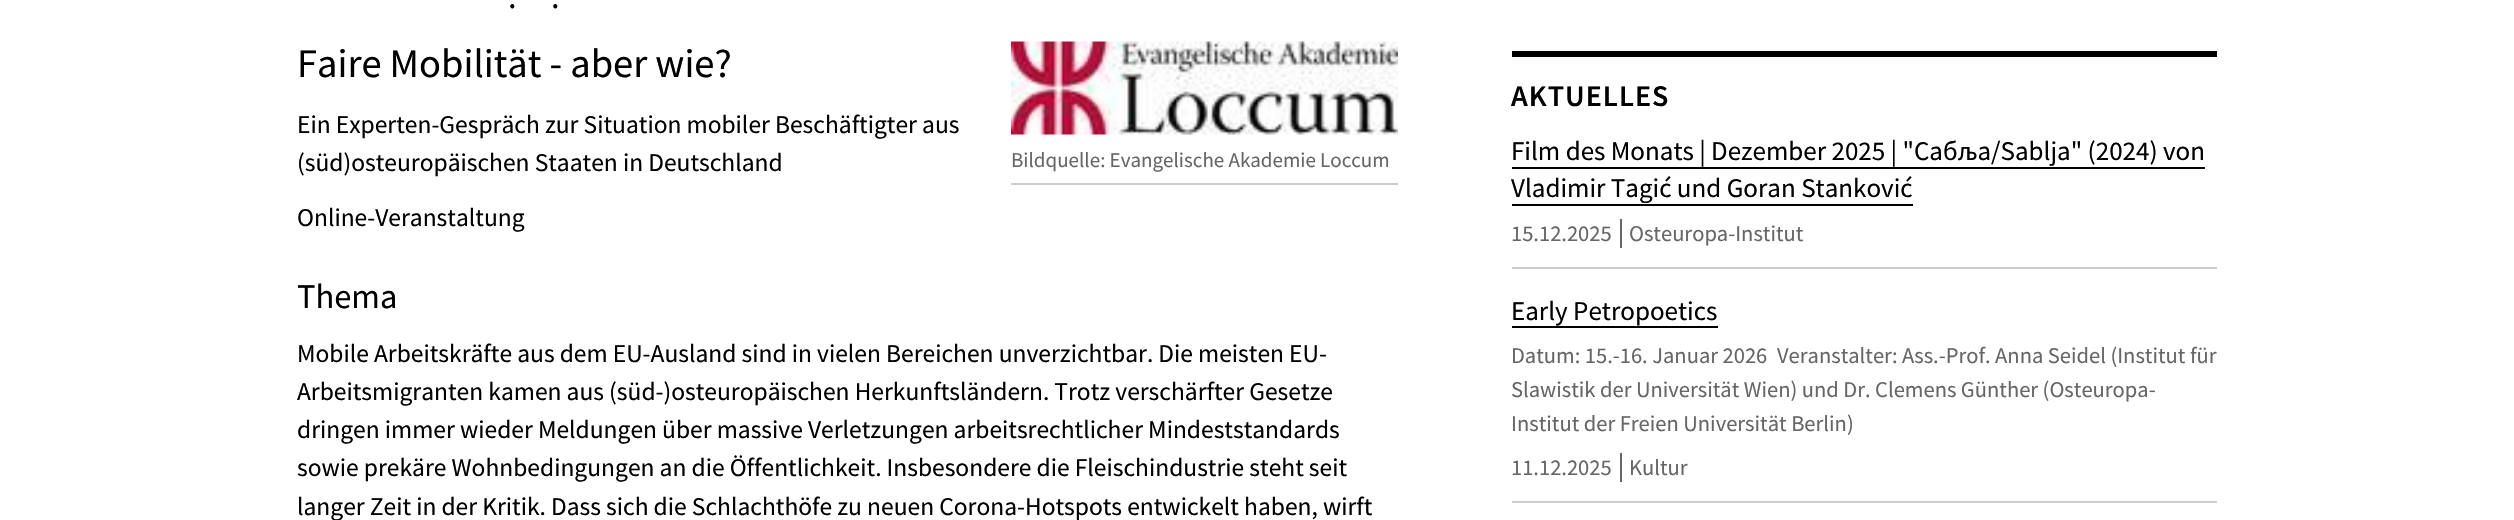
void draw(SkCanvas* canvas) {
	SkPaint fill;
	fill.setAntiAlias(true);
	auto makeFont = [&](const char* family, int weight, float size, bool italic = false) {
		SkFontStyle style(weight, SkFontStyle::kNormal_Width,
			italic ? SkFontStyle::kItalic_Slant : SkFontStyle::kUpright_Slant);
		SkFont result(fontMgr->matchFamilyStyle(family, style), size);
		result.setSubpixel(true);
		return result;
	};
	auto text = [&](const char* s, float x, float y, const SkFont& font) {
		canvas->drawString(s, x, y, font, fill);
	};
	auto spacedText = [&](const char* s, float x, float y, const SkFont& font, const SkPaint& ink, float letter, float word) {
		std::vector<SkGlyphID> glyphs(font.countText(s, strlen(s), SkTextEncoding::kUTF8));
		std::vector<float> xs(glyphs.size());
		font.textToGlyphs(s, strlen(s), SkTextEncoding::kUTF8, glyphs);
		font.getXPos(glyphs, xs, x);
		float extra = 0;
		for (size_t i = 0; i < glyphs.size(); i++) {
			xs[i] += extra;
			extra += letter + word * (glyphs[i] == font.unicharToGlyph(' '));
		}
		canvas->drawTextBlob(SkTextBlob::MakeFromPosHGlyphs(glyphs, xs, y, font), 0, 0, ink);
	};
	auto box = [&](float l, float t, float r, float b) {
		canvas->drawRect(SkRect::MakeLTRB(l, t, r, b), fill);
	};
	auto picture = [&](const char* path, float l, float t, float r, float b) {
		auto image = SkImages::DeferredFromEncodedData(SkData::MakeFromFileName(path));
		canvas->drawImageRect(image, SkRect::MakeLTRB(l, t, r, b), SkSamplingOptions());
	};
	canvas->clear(0xFFFFFFFF);
	picture("image0.png", 1011, 41, 1398, 135);
	fill.setColor(0xFFCCCCCC);
	box(1011, 183, 1398, 185);
	fill.setColor(0xFF000000);
	box(1512, 51, 2217, 57);
	fill.setColor(0xFFCCCCCC);
	box(1512, 267, 2217, 269);
	fill.setColor(0xFF000000);
	box(1512, 167, 2205, 169);
	box(1512, 204, 1913, 206);
	fill.setColor(0xFF666666);
	box(1620, 219, 1622, 248);
	fill.setColor(0xFFCCCCCC);
	box(1512, 501, 2217, 503);
	fill.setColor(0xFF000000);
	box(1512, 326, 1718, 328);
	fill.setColor(0xFF666666);
	box(1620, 453, 1622, 482);
	auto font1 = makeFont("Source Sans Pro", 400, 34.5f);
	fill.setColor(0xFF000000);
	text(".", 508, 8, font1);
	text(".", 551, 8, font1);
	auto font2 = makeFont("Source Sans Pro", 400, 40.5f);
	text("Faire Mobilität - aber wie?", 297, 77, font2);
	auto font3 = makeFont("Source Sans Pro", 400, 25.5f);
	text("Ein Experten-Gespräch zur Situation mobiler Beschäftigter aus", 297, 133, font3);
	text("(süd)osteuropäischen Staaten in Deutschland", 297, 171, font3);
	text("Online-Veranstaltung", 297, 226, font3);
	text("Thema", 297, 308, font1);
	text("Mobile Arbeitskräfte aus dem EU-Ausland sind in vielen Bereichen unverzichtbar. Die meisten EU-", 297, 362, font3);
	text("Arbeitsmigranten kamen aus (süd-)osteuropäischen Herkunftsländern. Trotz verschärfter Gesetze", 297, 400, font3);
	text("dringen immer wieder Meldungen über massive Verletzungen arbeitsrechtlicher Mindeststandards", 297, 438, font3);
	text("sowie prekäre Wohnbedingungen an die Öffentlichkeit. Insbesondere die Fleischindustrie steht seit", 297, 476, font3);
	text("langer Zeit in der Kritik. Dass sich die Schlachthöfe zu neuen Corona-Hotspots entwickelt haben, wirft", 297, 515, font3);
	auto font4 = makeFont("Source Sans Pro", 400, 21);
	fill.setColor(0xFF666666);
	text("Bildquelle: Evangelische Akademie Loccum", 1011, 167, font4);
	auto font5 = makeFont("Source Sans Pro", 600, 30);
	fill.setColor(0xFF000000);
	spacedText("AKTUELLES", 1511, 106, font5, fill, 1, 0);
	auto font6 = makeFont("Source Sans Pro", 400, 27);
	text("Film des Monats | Dezember 2025 | \"Сабља/Sablja\" (2024) von", 1511, 160, font6);
	text("Vladimir Tagić und Goran Stanković", 1511, 197, font6);
	auto font7 = makeFont("Source Sans Pro", 400, 22.5f);
	fill.setColor(0xFF666666);
	text("15.12.2025", 1511, 241, font7);
	text("Osteuropa-Institut", 1629, 241, font7);
	fill.setColor(0xFF000000);
	text("Early Petropoetics", 1511, 320, font6);
	fill.setColor(0xFF666666);
	text("Datum: 15.-16. Januar 2026", 1511, 363, font7);
	text("Veranstalter: Ass.-Prof. Anna Seidel (Institut für", 1777, 363, font7);
	text("Slawistik der Universität Wien) und Dr. Clemens Günther (Osteuropa-", 1511, 397, font7);
	text("Institut der Freien Universität Berlin)", 1511, 431, font7);
	text("11.12.2025", 1511, 475, font7);
	text("Kultur", 1629, 475, font7);
}
